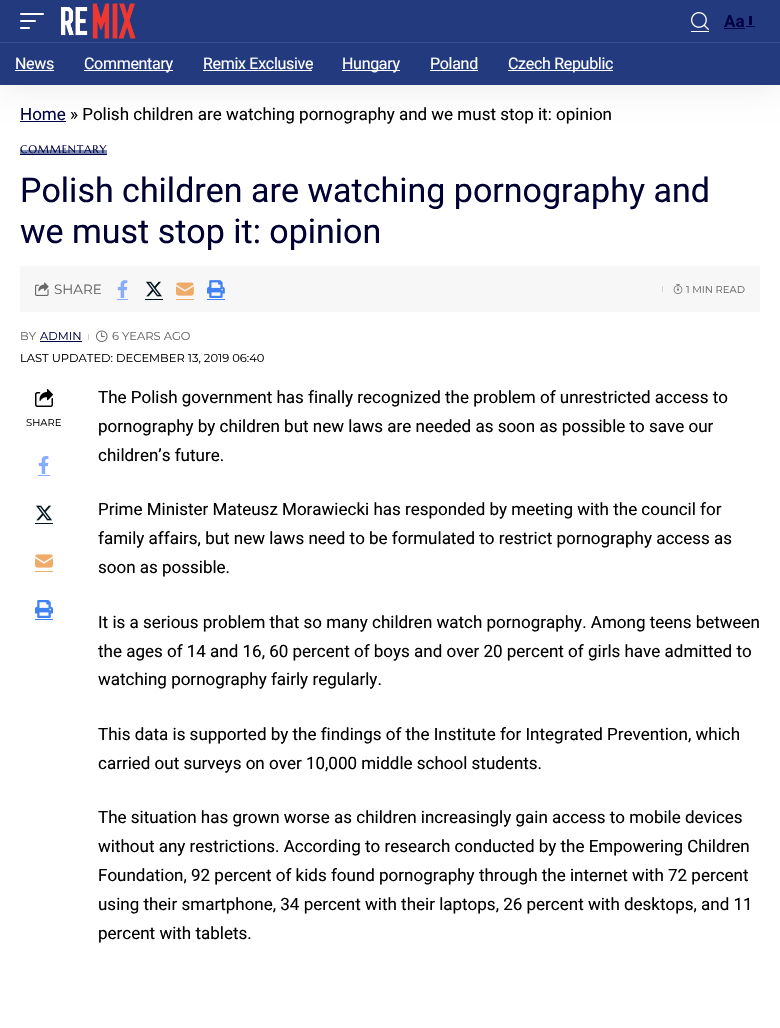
void draw(SkCanvas* canvas) {
	SkPaint fill;
	fill.setAntiAlias(true);
	auto makeFont = [&](const char* family, int weight, float size, bool italic = false) {
		SkFontStyle style(weight, SkFontStyle::kNormal_Width,
			italic ? SkFontStyle::kItalic_Slant : SkFontStyle::kUpright_Slant);
		SkFont result(fontMgr->matchFamilyStyle(family, style), size);
		result.setSubpixel(true);
		return result;
	};
	auto text = [&](const char* s, float x, float y, const SkFont& font) {
		canvas->drawString(s, x, y, font, fill);
	};
	auto spacedText = [&](const char* s, float x, float y, const SkFont& font, const SkPaint& ink, float letter, float word) {
		std::vector<SkGlyphID> glyphs(font.countText(s, strlen(s), SkTextEncoding::kUTF8));
		std::vector<float> xs(glyphs.size());
		font.textToGlyphs(s, strlen(s), SkTextEncoding::kUTF8, glyphs);
		font.getXPos(glyphs, xs, x);
		float extra = 0;
		for (size_t i = 0; i < glyphs.size(); i++) {
			xs[i] += extra;
			extra += letter + word * (glyphs[i] == font.unicharToGlyph(' '));
		}
		canvas->drawTextBlob(SkTextBlob::MakeFromPosHGlyphs(glyphs, xs, y, font), 0, 0, ink);
	};
	auto box = [&](float l, float t, float r, float b) {
		canvas->drawRect(SkRect::MakeLTRB(l, t, r, b), fill);
	};
	auto roundBox = [&](float l, float t, float r, float b, float radius) {
		canvas->drawRoundRect(SkRect::MakeLTRB(l, t, r, b), radius, radius, fill);
	};
	auto picture = [&](const char* path, float l, float t, float r, float b) {
		auto image = SkImages::DeferredFromEncodedData(SkData::MakeFromFileName(path));
		canvas->drawImageRect(image, SkRect::MakeLTRB(l, t, r, b), SkSamplingOptions());
	};
	canvas->clear(0xFFFFFFFF);
	fill.setColor(0xFF020244);
	box(20, 121, 66, 122);
	fill.setColor(0x12000000);
	fill.setMaskFilter(SkMaskFilter::MakeBlur(kNormal_SkBlurStyle, 15));
	canvas->drawRect(SkRect::MakeLTRB(0, 4, 780, 89), fill);
	fill.setMaskFilter(nullptr);
	fill.setColor(0xFF233B7E);
	box(0, 0, 780, 85);
	fill.setColor(0xFFFFFFFF);
	roundBox(20, 13, 44, 15, 1);
	roundBox(20, 20, 36, 22, 1);
	roundBox(20, 27, 30, 29, 1);
	picture("image0.png", 61, 3, 136, 39);
	picture("image1.png", 691, 12, 709, 30);
	box(691, 31, 709, 32);
	fill.setColor(0xFF020244);
	box(724, 28, 745, 29);
	box(746, 26, 755, 27);
	box(749, 16, 752, 25);
	fill.setColor(0xFF394F8B);
	box(0, 42, 780, 43);
	fill.setColor(0xFFFFFFFF);
	box(15, 70, 54, 71);
	box(84, 70, 173, 71);
	box(203, 70, 312, 71);
	box(342, 70, 400, 71);
	box(430, 70, 478, 71);
	box(508, 70, 613, 71);
	fill.setColor(0xFF020244);
	box(20, 154, 107, 155);
	fill.setColor(0xFF7B89B2);
	box(20, 150, 107, 154);
	fill.setColor(0xFFF7F7F7);
	box(20, 266, 760, 312);
	picture("image2.png", 35, 282, 49, 296);
	picture("image3.png", 117, 280, 128, 298);
	fill.setColor(0xFF89ABFC);
	box(117, 299, 128, 300);
	picture("image4.png", 146, 281, 162, 297);
	fill.setColor(0xFF00151C);
	box(145, 299, 163, 300);
	picture("image5.png", 176, 282, 194, 296);
	fill.setColor(0xFFEFAB68);
	box(176, 299, 194, 300);
	picture("image6.png", 207, 280, 225, 298);
	fill.setColor(0xFF4082F1);
	box(207, 299, 225, 300);
	fill.setColor(0xFFD3D3D3);
	box(662, 286, 663, 292);
	picture("image7.png", 673, 284, 683, 294);
	fill.setColor(0xFF020244);
	box(40, 341, 82, 342);
	fill.setColor(0xFFD1D1D1);
	box(88, 334, 89, 340);
	picture("image8.png", 96, 330, 108, 342);
	picture("image9.png", 35, 389, 53, 407);
	picture("image10.png", 38, 456, 49, 474);
	fill.setColor(0xFF89ABFC);
	box(38, 475, 50, 476);
	picture("image11.png", 36, 505, 52, 521);
	fill.setColor(0xFF00151C);
	box(35, 523, 53, 524);
	picture("image12.png", 35, 554, 53, 568);
	fill.setColor(0xFFEFAB68);
	box(35, 571, 53, 572);
	picture("image13.png", 35, 600, 53, 618);
	fill.setColor(0xFF4082F1);
	box(35, 619, 53, 620);
	auto font1 = makeFont("Roboto", 700, 17);
	fill.setColor(0xFF020244);
	text("Aa", 724, 27, font1);
	auto font2 = makeFont("Roboto", 400, 16);
	fill.setColor(0xFFFFFFFF);
	spacedText("News", 15, 69, font2, fill, -0.3f, 0);
	spacedText("Commentary", 84, 69, font2, fill, -0.3f, 0);
	spacedText("Remix Exclusive", 203, 69, font2, fill, -0.3f, 0);
	spacedText("Hungary", 342, 69, font2, fill, -0.3f, 0);
	spacedText("Poland", 430, 69, font2, fill, -0.3f, 0);
	spacedText("Czech Republic", 508, 69, font2, fill, -0.3f, 0);
	auto font3 = makeFont("Roboto", 400, 17);
	fill.setColor(0xFF020244);
	text("Home", 20, 120, font3);
	fill.setColor(0xFF000000);
	text("» Polish children are watching pornography and we must stop it: opinion", 70, 120, font3);
	auto font4 = makeFont("Marcellus", 400, 11);
	fill.setColor(0xFF020244);
	spacedText("COMMENTARY", 20, 153, font4, fill, 0.75f, 0);
	auto font5 = makeFont("Roboto", 400, 34);
	fill.setColor(0xFF000032);
	text("Polish children are watching pornography and", 20, 202, font5);
	text("we must stop it: opinion", 20, 243, font5);
	auto font6 = makeFont("Montserrat", 400, 13.5f);
	fill.setColor(0xFF666666);
	text("SHARE", 54, 294, font6);
	auto font7 = makeFont("Montserrat", 400, 10);
	text("1 MIN READ", 686, 293, font7);
	auto font8 = makeFont("Montserrat", 400, 11.5f);
	text("BY", 20, 340, font8);
	fill.setColor(0xFF020244);
	text("ADMIN", 40, 340, font8);
	fill.setColor(0xFF666666);
	text("6 YEARS AGO", 112, 340, font8);
	fill.setColor(0xFF000000);
	text("LAST UPDATED: DECEMBER 13, 2019 06:40", 20, 362, font8);
	text("SHARE", 26, 426, font7);
	text("The Polish government has finally recognized the problem of unrestricted access to", 98, 403, font3);
	text("pornography by children but new laws are needed as soon as possible to save our", 98, 432, font3);
	text("children’s future.", 98, 461, font3);
	text("Prime Minister Mateusz Morawiecki has responded by meeting with the council for", 98, 515, font3);
	text("family affairs, but new laws need to be formulated to restrict pornography access as", 98, 544, font3);
	text("soon as possible.", 98, 573, font3);
	text("It is a serious problem that so many children watch pornography. Among teens between", 98, 628, font3);
	text("the ages of 14 and 16, 60 percent of boys and over 20 percent of girls have admitted to", 98, 657, font3);
	text("watching pornography fairly regularly.", 98, 685, font3);
	text("This data is supported by the findings of the Institute for Integrated Prevention, which", 98, 740, font3);
	text("carried out surveys on over 10,000 middle school students.", 98, 769, font3);
	text("The situation has grown worse as children increasingly gain access to mobile devices", 98, 823, font3);
	text("without any restrictions. According to research conducted by the Empowering Children", 98, 852, font3);
	text("Foundation, 92 percent of kids found pornography through the internet with 72 percent", 98, 881, font3);
	text("using their smartphone, 34 percent with their laptops, 26 percent with desktops, and 11", 98, 910, font3);
	text("percent with tablets.", 98, 939, font3);
}
